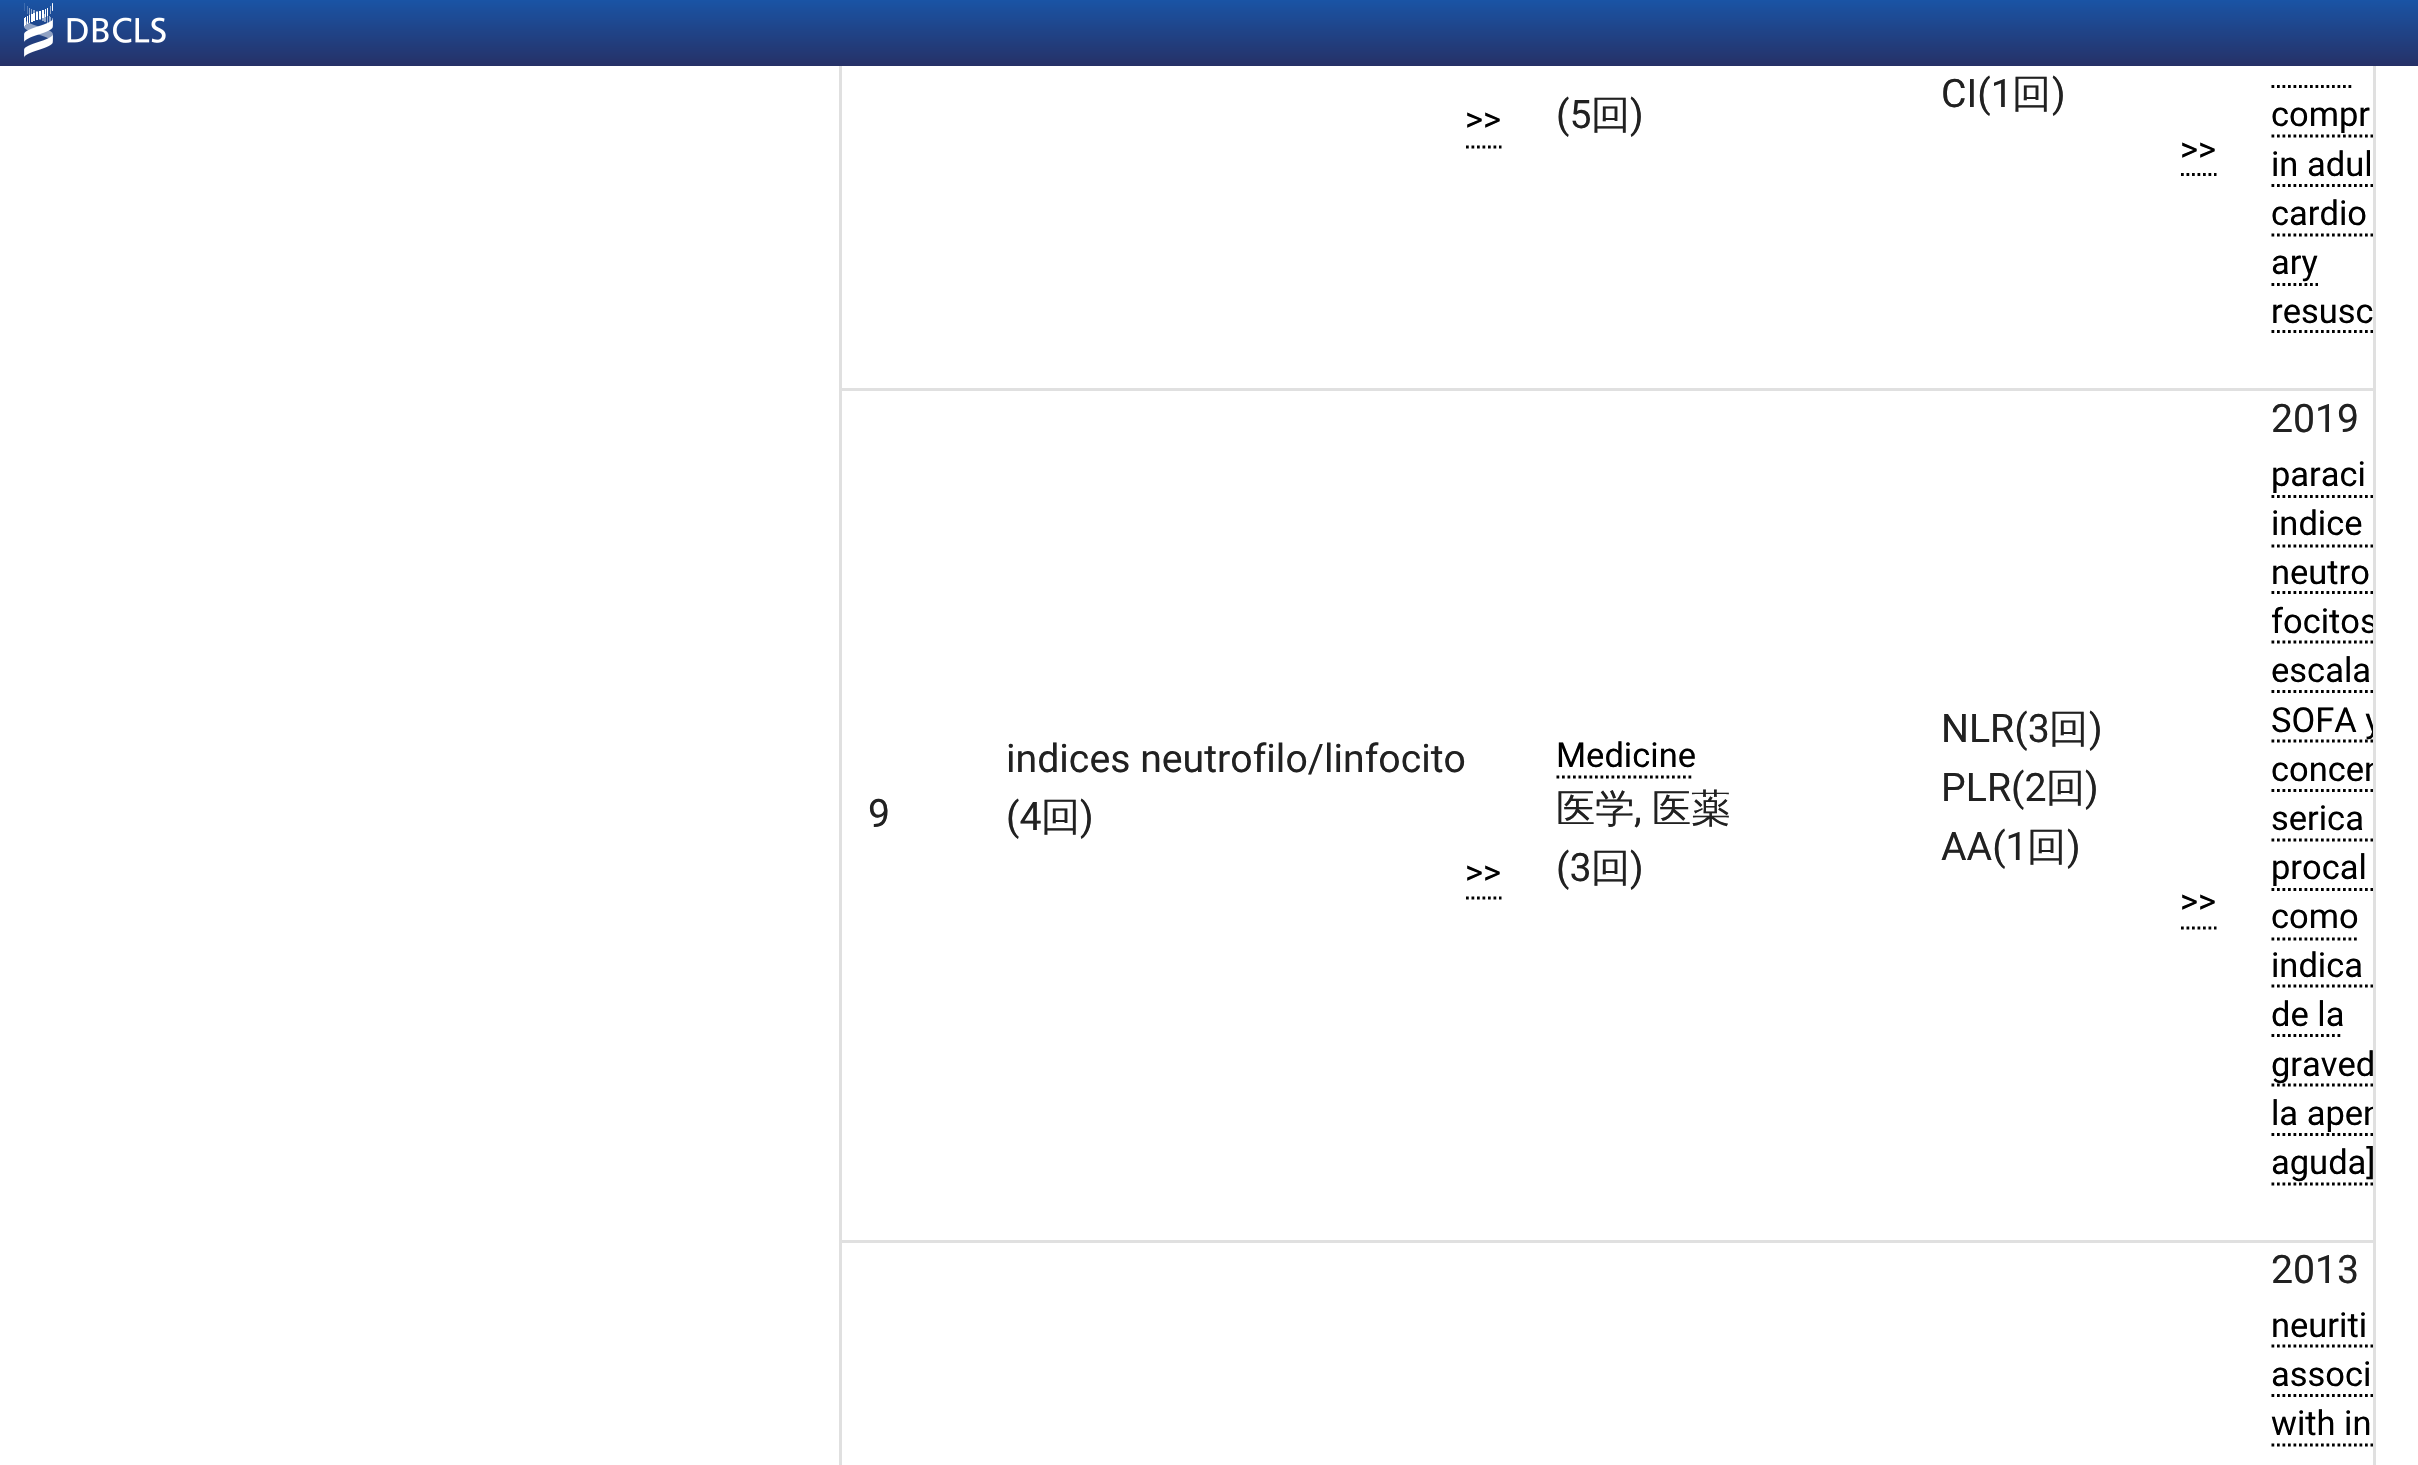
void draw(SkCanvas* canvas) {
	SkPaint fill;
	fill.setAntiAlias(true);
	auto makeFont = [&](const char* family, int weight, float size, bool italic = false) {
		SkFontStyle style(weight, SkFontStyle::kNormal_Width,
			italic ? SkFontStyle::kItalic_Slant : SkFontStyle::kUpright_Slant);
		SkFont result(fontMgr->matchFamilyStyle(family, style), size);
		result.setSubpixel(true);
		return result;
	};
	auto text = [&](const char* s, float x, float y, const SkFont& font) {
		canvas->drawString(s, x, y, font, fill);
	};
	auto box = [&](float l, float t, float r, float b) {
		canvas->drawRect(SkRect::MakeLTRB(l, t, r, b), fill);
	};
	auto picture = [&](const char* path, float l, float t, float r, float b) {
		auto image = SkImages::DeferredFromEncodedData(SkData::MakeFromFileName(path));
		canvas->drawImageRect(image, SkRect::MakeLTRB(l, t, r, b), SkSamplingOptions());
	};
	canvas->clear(0xFFFFFFFF);
	fill.setStyle(SkPaint::kStroke_Style);
	fill.setStrokeWidth(3);
	fill.setColor(0xFFE0E0E0);
	canvas->drawRect(SkRect::MakeLTRB(840.5f, -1.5f, 2374.5f, 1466.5f), fill);
	fill.setStyle(SkPaint::kFill_Style);
	{
		const SkColor colors[] = {0xFF1A54A5, 0xFF263167};
		const float stops[] = {0, 1};
		const SkPoint ends[] = {{1210, 0}, {1210, 66}};
		fill.setShader(SkGradientShader::MakeLinear(ends, colors, stops, 2, SkTileMode::kClamp));
		fill.setAlpha(255);
	}
	box(0, 0, 2418, 66);
	picture("image0.png", 24, 3, 166, 58);
	fill.setStyle(SkPaint::kStroke_Style);
	fill.setStrokeWidth(2.8f);
	fill.setShader(nullptr);
	fill.setColor(0xFF000000);
	fill.setPathEffect(SkDashPathEffect::Make({{2.75f, 2.75f}}, 0));
	canvas->drawPath(SkPathBuilder().moveTo(1466, 147).lineTo(1501.5f, 147).detach(), fill);
	fill.setPathEffect(nullptr);
	fill.setPathEffect(SkDashPathEffect::Make({{2.75f, 2.75f}}, 0));
	canvas->drawPath(SkPathBuilder().moveTo(2181, 174.5f).lineTo(2216.5f, 174.5f).detach(), fill);
	fill.setPathEffect(nullptr);
	fill.setPathEffect(SkDashPathEffect::Make({{2.75f, 2.75f}}, 0));
	canvas->drawPath(SkPathBuilder().moveTo(2271.5f, 86.5f).lineTo(2354, 86.5f).detach(), fill);
	fill.setPathEffect(nullptr);
	canvas->save();
	canvas->clipRect(SkRect::MakeLTRB(842, 0, 2373, 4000));
	fill.setPathEffect(SkDashPathEffect::Make({{2.75f, 2.75f}}, 0));
	canvas->drawPath(SkPathBuilder().moveTo(2271.5f, 136).lineTo(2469.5f, 136).detach(), fill);
	fill.setPathEffect(nullptr);
	fill.setPathEffect(SkDashPathEffect::Make({{2.75f, 2.75f}}, 0));
	canvas->drawPath(SkPathBuilder().moveTo(2271.5f, 185.5f).lineTo(2384, 185.5f).detach(), fill);
	fill.setPathEffect(nullptr);
	fill.setPathEffect(SkDashPathEffect::Make({{2.75f, 2.75f}}, 0));
	canvas->drawPath(SkPathBuilder().moveTo(2271.5f, 235).lineTo(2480.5f, 235).detach(), fill);
	fill.setPathEffect(nullptr);
	canvas->restore();
	fill.setPathEffect(SkDashPathEffect::Make({{2.75f, 2.75f}}, 0));
	canvas->drawPath(SkPathBuilder().moveTo(2271.5f, 284.5f).lineTo(2318, 284.5f).detach(), fill);
	fill.setPathEffect(nullptr);
	canvas->save();
	canvas->clipRect(SkRect::MakeLTRB(842, 0, 2373, 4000));
	fill.setPathEffect(SkDashPathEffect::Make({{2.75f, 2.75f}}, 0));
	canvas->drawPath(SkPathBuilder().moveTo(2271.5f, 331.5f).lineTo(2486, 331.5f).detach(), fill);
	fill.setPathEffect(nullptr);
	canvas->restore();
	fill.setStyle(SkPaint::kFill_Style);
	fill.setColor(0xFFE0E0E0);
	box(842, 388, 2373, 391);
	box(842, 1240, 2373, 1243);
	fill.setStyle(SkPaint::kStroke_Style);
	fill.setColor(0xFF000000);
	fill.setPathEffect(SkDashPathEffect::Make({{2.75f, 2.75f}}, 0));
	canvas->drawPath(SkPathBuilder().moveTo(1466, 898).lineTo(1501.5f, 898).detach(), fill);
	fill.setPathEffect(nullptr);
	fill.setPathEffect(SkDashPathEffect::Make({{2.75f, 2.75f}}, 0));
	canvas->drawPath(SkPathBuilder().moveTo(1556.5f, 777).lineTo(1694, 777).detach(), fill);
	fill.setPathEffect(nullptr);
	fill.setPathEffect(SkDashPathEffect::Make({{2.75f, 2.75f}}, 0));
	canvas->drawPath(SkPathBuilder().moveTo(2181, 928).lineTo(2216.5f, 928).detach(), fill);
	fill.setPathEffect(nullptr);
	canvas->save();
	canvas->clipRect(SkRect::MakeLTRB(842, 0, 2373, 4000));
	fill.setPathEffect(SkDashPathEffect::Make({{2.75f, 2.75f}}, 0));
	canvas->drawPath(SkPathBuilder().moveTo(2271.5f, 496.5f).lineTo(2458.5f, 496.5f).detach(), fill);
	fill.setPathEffect(nullptr);
	fill.setPathEffect(SkDashPathEffect::Make({{2.75f, 2.75f}}, 0));
	canvas->drawPath(SkPathBuilder().moveTo(2271.5f, 546).lineTo(2409, 546).detach(), fill);
	fill.setPathEffect(nullptr);
	fill.setPathEffect(SkDashPathEffect::Make({{2.75f, 2.75f}}, 0));
	canvas->drawPath(SkPathBuilder().moveTo(2271.5f, 592.5f).lineTo(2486, 592.5f).detach(), fill);
	fill.setPathEffect(nullptr);
	fill.setPathEffect(SkDashPathEffect::Make({{2.75f, 2.75f}}, 0));
	canvas->drawPath(SkPathBuilder().moveTo(2271.5f, 642).lineTo(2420, 642).detach(), fill);
	fill.setPathEffect(nullptr);
	fill.setPathEffect(SkDashPathEffect::Make({{2.75f, 2.75f}}, 0));
	canvas->drawPath(SkPathBuilder().moveTo(2271.5f, 691.5f).lineTo(2417, 691.5f).detach(), fill);
	fill.setPathEffect(nullptr);
	fill.setPathEffect(SkDashPathEffect::Make({{2.75f, 2.75f}}, 0));
	canvas->drawPath(SkPathBuilder().moveTo(2271.5f, 741).lineTo(2417, 741).detach(), fill);
	fill.setPathEffect(nullptr);
	fill.setPathEffect(SkDashPathEffect::Make({{2.75f, 2.75f}}, 0));
	canvas->drawPath(SkPathBuilder().moveTo(2271.5f, 790.5f).lineTo(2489, 790.5f).detach(), fill);
	fill.setPathEffect(nullptr);
	fill.setPathEffect(SkDashPathEffect::Make({{2.75f, 2.75f}}, 0));
	canvas->drawPath(SkPathBuilder().moveTo(2271.5f, 840).lineTo(2409, 840).detach(), fill);
	fill.setPathEffect(nullptr);
	fill.setPathEffect(SkDashPathEffect::Make({{2.75f, 2.75f}}, 0));
	canvas->drawPath(SkPathBuilder().moveTo(2271.5f, 889.5f).lineTo(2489, 889.5f).detach(), fill);
	fill.setPathEffect(nullptr);
	canvas->restore();
	fill.setPathEffect(SkDashPathEffect::Make({{2.75f, 2.75f}}, 0));
	canvas->drawPath(SkPathBuilder().moveTo(2271.5f, 939).lineTo(2357, 939).detach(), fill);
	fill.setPathEffect(nullptr);
	canvas->save();
	canvas->clipRect(SkRect::MakeLTRB(842, 0, 2373, 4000));
	fill.setPathEffect(SkDashPathEffect::Make({{2.75f, 2.75f}}, 0));
	canvas->drawPath(SkPathBuilder().moveTo(2271.5f, 986).lineTo(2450, 986).detach(), fill);
	fill.setPathEffect(nullptr);
	canvas->restore();
	fill.setPathEffect(SkDashPathEffect::Make({{2.75f, 2.75f}}, 0));
	canvas->drawPath(SkPathBuilder().moveTo(2271.5f, 1035.5f).lineTo(2343, 1035.5f).detach(), fill);
	fill.setPathEffect(nullptr);
	canvas->save();
	canvas->clipRect(SkRect::MakeLTRB(842, 0, 2373, 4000));
	fill.setPathEffect(SkDashPathEffect::Make({{2.75f, 2.75f}}, 0));
	canvas->drawPath(SkPathBuilder().moveTo(2271.5f, 1085).lineTo(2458.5f, 1085).detach(), fill);
	fill.setPathEffect(nullptr);
	fill.setPathEffect(SkDashPathEffect::Make({{2.75f, 2.75f}}, 0));
	canvas->drawPath(SkPathBuilder().moveTo(2271.5f, 1134.5f).lineTo(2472, 1134.5f).detach(), fill);
	fill.setPathEffect(nullptr);
	fill.setPathEffect(SkDashPathEffect::Make({{2.75f, 2.75f}}, 0));
	canvas->drawPath(SkPathBuilder().moveTo(2271.5f, 1184).lineTo(2384, 1184).detach(), fill);
	fill.setPathEffect(nullptr);
	fill.setPathEffect(SkDashPathEffect::Make({{2.75f, 2.75f}}, 0));
	canvas->drawPath(SkPathBuilder().moveTo(2271.5f, 1346).lineTo(2417, 1346).detach(), fill);
	fill.setPathEffect(nullptr);
	fill.setPathEffect(SkDashPathEffect::Make({{2.75f, 2.75f}}, 0));
	canvas->drawPath(SkPathBuilder().moveTo(2271.5f, 1395.5f).lineTo(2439, 1395.5f).detach(), fill);
	fill.setPathEffect(nullptr);
	fill.setPathEffect(SkDashPathEffect::Make({{2.75f, 2.75f}}, 0));
	canvas->drawPath(SkPathBuilder().moveTo(2271.5f, 1445).lineTo(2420, 1445).detach(), fill);
	fill.setPathEffect(nullptr);
	canvas->restore();
	auto font1 = makeFont("Roboto", 400, 34.5f);
	fill.setStyle(SkPaint::kFill_Style);
	text(">>", 1465, 131, font1);
	auto font2 = makeFont("Roboto", 400, 39.25f);
	fill.setColor(0xFF212121);
	text("(5", 1556, 128, font2);
	auto font3 = makeFont("WenQuanYi Zen Hei", 500, 39.25f);
	text("回", 1591, 128, font3);
	text(")", 1630, 128, font2);
	text("CI(1", 1941, 107, font2);
	text("回", 2012, 107, font3);
	text(")", 2052, 107, font2);
	fill.setColor(0xFF000000);
	text(">>", 2180, 161, font1);
	text("compr", 2271, 126, font1);
	text("in adul", 2271, 176, font1);
	text("cardio", 2271, 225, font1);
	text("ary", 2271, 274, font1);
	text("resusc", 2271, 323, font1);
	fill.setColor(0xFF212121);
	text("9", 868, 827, font2);
	text("indices neutrofilo/linfocito", 1006, 772, font2);
	text("(4", 1006, 830, font2);
	text("回", 1041, 830, font3);
	text(")", 1080, 830, font2);
	fill.setColor(0xFF000000);
	text(">>", 1465, 884, font1);
	text("Medicine", 1556, 767, font1);
	fill.setColor(0xFF212121);
	text("医学", 1556, 822, font3);
	text(",", 1634, 822, font2);
	text("医薬", 1652, 822, font3);
	text("(3", 1556, 881, font2);
	text("回", 1591, 881, font3);
	text(")", 1630, 881, font2);
	text("NLR(3", 1941, 742, font2);
	text("回", 2049, 742, font3);
	text(")", 2089, 742, font2);
	text("PLR(2", 1941, 801, font2);
	text("回", 2046, 801, font3);
	text(")", 2085, 801, font2);
	text("AA(1", 1941, 860, font2);
	text("回", 2027, 860, font3);
	text(")", 2067, 860, font2);
	fill.setColor(0xFF000000);
	text(">>", 2180, 913, font1);
	fill.setColor(0xFF212121);
	text("2019", 2271, 432, font2);
	fill.setColor(0xFF000000);
	text("paraci", 2271, 486, font1);
	text("indice", 2271, 535, font1);
	text("neutro", 2271, 584, font1);
	canvas->save();
	canvas->clipRect(SkRect::MakeLTRB(842, 0, 2373, 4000));
	text("focitos", 2271, 633, font1);
	canvas->restore();
	text("escala", 2271, 682, font1);
	canvas->save();
	canvas->clipRect(SkRect::MakeLTRB(842, 0, 2373, 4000));
	text("SOFA y", 2271, 732, font1);
	text("concen", 2271, 781, font1);
	canvas->restore();
	text("serica", 2271, 830, font1);
	text("procal", 2271, 879, font1);
	text("como", 2271, 928, font1);
	text("indica", 2271, 977, font1);
	text("de la", 2271, 1026, font1);
	text("graved", 2271, 1076, font1);
	canvas->save();
	canvas->clipRect(SkRect::MakeLTRB(842, 0, 2373, 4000));
	text("la apen", 2271, 1125, font1);
	canvas->restore();
	text("aguda]", 2271, 1174, font1);
	fill.setColor(0xFF212121);
	text("2013", 2271, 1283, font2);
	fill.setColor(0xFF000000);
	text("neuriti", 2271, 1337, font1);
	text("associ", 2271, 1386, font1);
	text("with in", 2271, 1435, font1);
}
